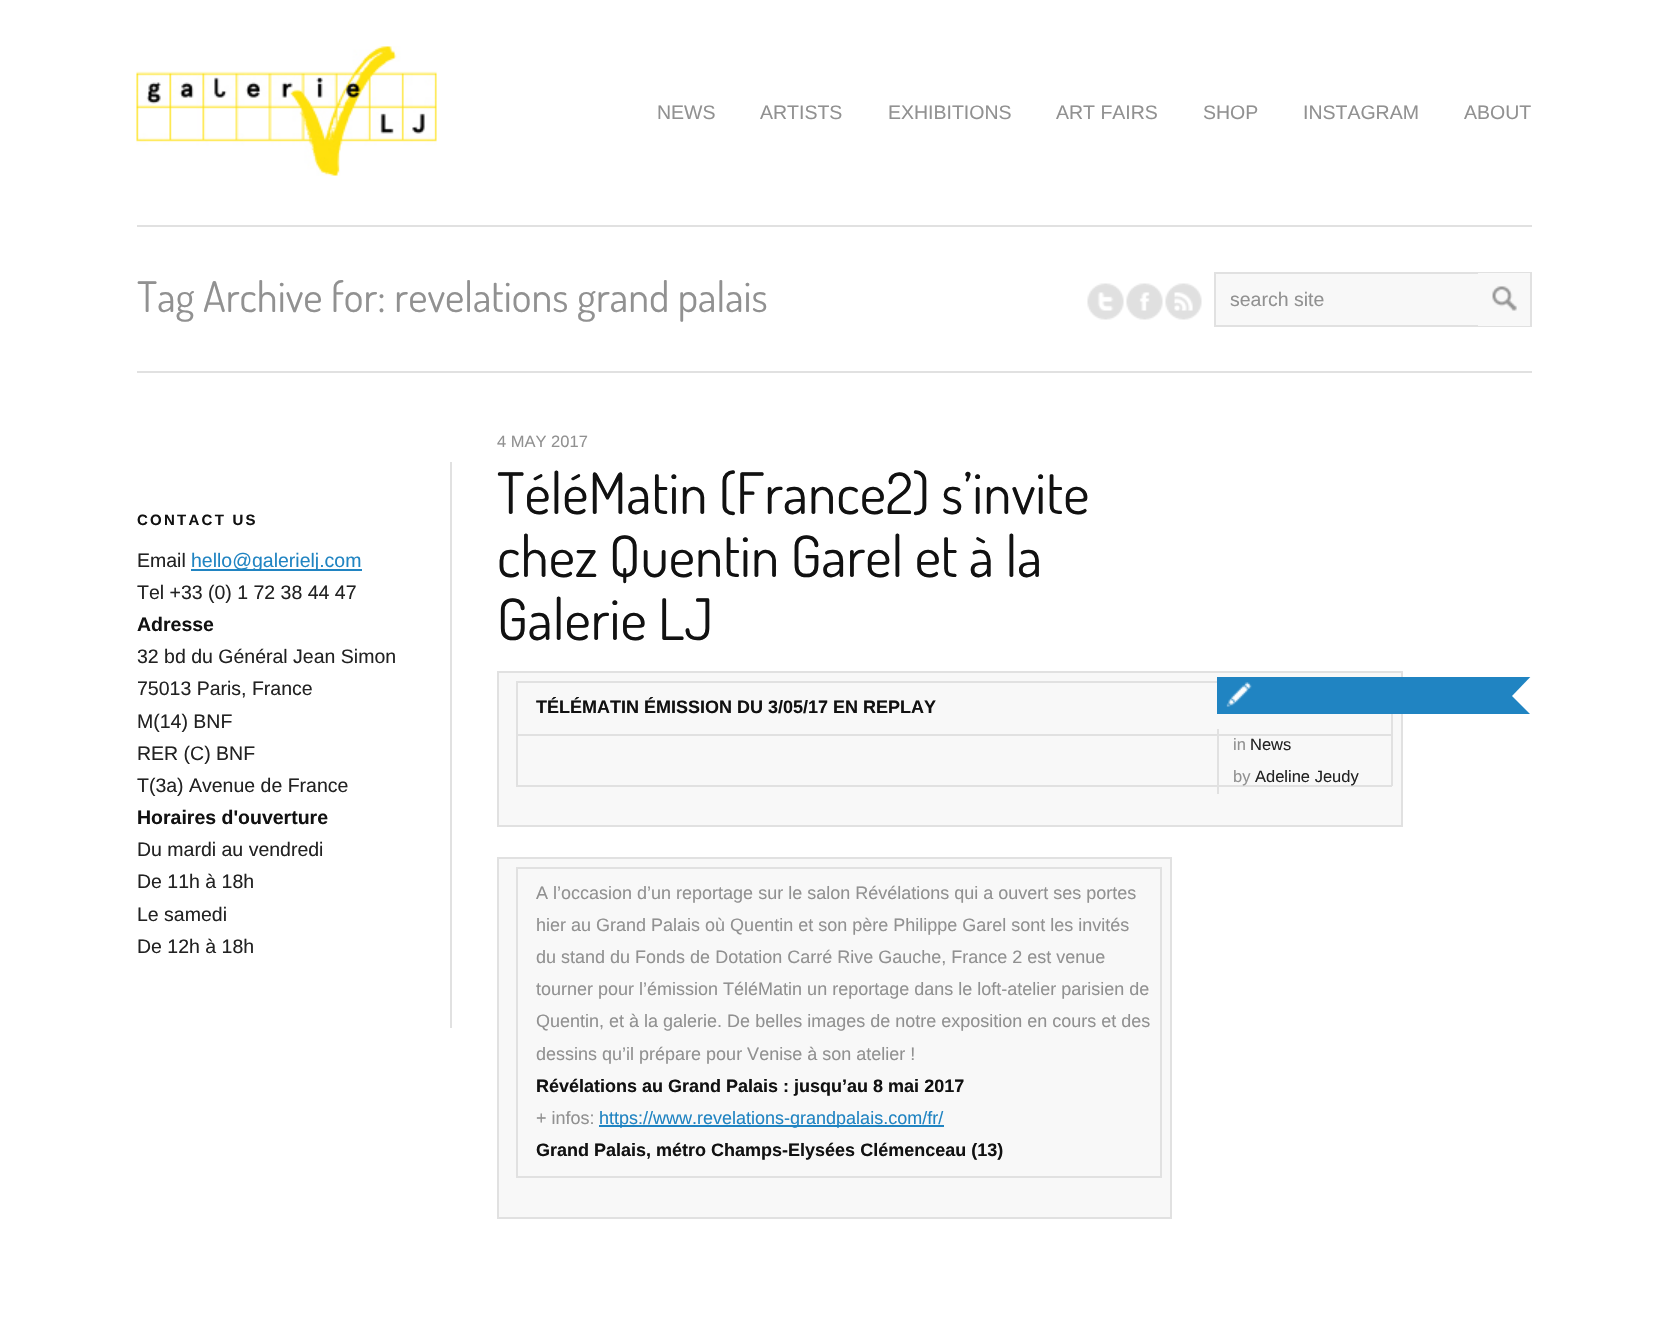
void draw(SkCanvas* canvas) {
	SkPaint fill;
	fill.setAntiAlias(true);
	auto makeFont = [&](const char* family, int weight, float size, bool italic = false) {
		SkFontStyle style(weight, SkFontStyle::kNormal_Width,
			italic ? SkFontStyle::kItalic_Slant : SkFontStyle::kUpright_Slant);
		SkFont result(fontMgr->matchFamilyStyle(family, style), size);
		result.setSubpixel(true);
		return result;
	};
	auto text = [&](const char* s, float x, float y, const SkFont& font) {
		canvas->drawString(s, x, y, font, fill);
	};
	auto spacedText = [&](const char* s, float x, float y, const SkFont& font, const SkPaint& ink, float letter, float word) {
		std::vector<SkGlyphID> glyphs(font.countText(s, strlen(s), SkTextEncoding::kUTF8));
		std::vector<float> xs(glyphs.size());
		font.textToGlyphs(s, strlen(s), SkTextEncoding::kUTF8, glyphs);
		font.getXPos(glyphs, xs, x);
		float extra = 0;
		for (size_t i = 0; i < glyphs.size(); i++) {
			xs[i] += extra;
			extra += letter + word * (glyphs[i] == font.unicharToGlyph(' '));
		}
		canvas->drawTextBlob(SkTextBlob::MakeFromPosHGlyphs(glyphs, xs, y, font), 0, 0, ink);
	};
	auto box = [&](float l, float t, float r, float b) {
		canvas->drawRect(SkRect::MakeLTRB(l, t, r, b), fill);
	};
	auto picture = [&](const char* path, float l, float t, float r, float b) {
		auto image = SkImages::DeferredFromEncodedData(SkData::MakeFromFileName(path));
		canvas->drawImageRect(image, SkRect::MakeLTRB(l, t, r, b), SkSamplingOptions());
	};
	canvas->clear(0xFFFFFFFF);
	fill.setColor(0xFFE1E1E1);
	box(137, 225, 1532, 227);
	picture("image0.png", 136, 46, 437, 176);
	box(137, 371, 1532, 373);
	picture("image1.png", 1087, 283, 1124, 320);
	picture("image2.png", 1126, 283, 1163, 320);
	picture("image3.png", 1165, 283, 1202, 320);
	fill.setColor(0xFFF8F8F8);
	box(1216, 274, 1478, 325);
	fill.setStyle(SkPaint::kStroke_Style);
	fill.setStrokeWidth(2);
	fill.setColor(0xFFE1E1E1);
	canvas->drawRect(SkRect::MakeLTRB(1215, 273, 1531, 326), fill);
	fill.setStyle(SkPaint::kFill_Style);
	fill.setColor(0xFFF8F8F8);
	box(1478, 273, 1530, 326);
	picture("image4.png", 1492, 286, 1517, 311);
	fill.setColor(0xFFE1E1E1);
	box(450, 462, 452, 1028);
	fill.setColor(0xFF2084C2);
	box(191, 569, 362, 571);
	fill.setColor(0xFFE1E1E1);
	box(497, 671, 1403, 673);
	fill.setColor(0xFFF8F8F8);
	box(499, 673, 1401, 825);
	fill.setColor(0xFFE1E1E1);
	box(1401, 671, 1403, 827);
	box(497, 825, 1403, 827);
	box(497, 671, 499, 827);
	box(516, 681, 1217, 683);
	box(1391, 714, 1393, 786);
	box(516, 785, 1392, 787);
	box(516, 734, 518, 786);
	box(516, 734, 1392, 736);
	box(516, 681, 518, 735);
	box(497, 857, 1172, 859);
	fill.setColor(0xFFF8F8F8);
	box(499, 859, 1170, 1217);
	fill.setColor(0xFFE1E1E1);
	box(1170, 857, 1172, 1218);
	box(497, 1217, 1172, 1219);
	box(497, 857, 499, 1218);
	box(516, 867, 1161, 869);
	box(1160, 867, 1162, 1178);
	box(516, 1176, 1161, 1178);
	box(516, 867, 518, 1178);
	fill.setColor(0xFF2084C2);
	box(599, 1125, 944, 1127);
	box(1217, 677, 1531, 714);
	picture("image5.png", 1226, 682, 1252, 707);
	canvas->save();
	canvas->clipRect(SkRect::MakeLTRB(1217, 677, 1532, 714));
	fill.setColor(0xFFFFFFFF);
	canvas->drawPath(SkPathBuilder().moveTo(1538, 669).lineTo(1565, 696).lineTo(1538, 722).lineTo(1512, 696).close().detach(), fill);
	canvas->restore();
	fill.setColor(0xFFE1E1E1);
	box(1217, 729, 1219, 794);
	auto font1 = makeFont("Liberation Sans", 400, 19.5f);
	fill.setColor(0xFF919191);
	text("NEWS", 657, 119, font1);
	text("ARTISTS", 760, 119, font1);
	text("EXHIBITIONS", 888, 119, font1);
	text("ART FAIRS", 1056, 119, font1);
	text("SHOP", 1203, 119, font1);
	text("INSTAGRAM", 1303, 119, font1);
	text("ABOUT", 1464, 119, font1);
	auto font2 = makeFont("Dosis", 400, 42);
	text("Tag Archive for: revelations grand palais", 137, 312, font2);
	text("search site", 1230, 306, font1);
	auto font3 = makeFont("Liberation Sans", 700, 15);
	fill.setColor(0xFF111111);
	spacedText("CONTACT US", 137, 525, font3, fill, 2.25f, 0);
	fill.setColor(0xFF222222);
	text("Email", 137, 567, font1);
	fill.setColor(0xFF2084C2);
	text("hello@galerielj.com", 191, 567, font1);
	fill.setColor(0xFF222222);
	text("Tel +33 (0) 1 72 38 44 47", 137, 599, font1);
	auto font4 = makeFont("Liberation Sans", 700, 19.5f);
	fill.setColor(0xFF111111);
	text("Adresse", 137, 631, font4);
	fill.setColor(0xFF222222);
	text("32 bd du Général Jean Simon", 137, 663, font1);
	text("75013 Paris, France", 137, 695, font1);
	text("M(14) BNF", 137, 728, font1);
	text("RER (C) BNF", 137, 760, font1);
	text("T(3a) Avenue de France", 137, 792, font1);
	fill.setColor(0xFF111111);
	text("Horaires d'ouverture", 137, 824, font4);
	fill.setColor(0xFF222222);
	text("Du mardi au vendredi", 137, 856, font1);
	text("De 11h à 18h", 137, 888, font1);
	text("Le samedi", 137, 921, font1);
	text("De 12h à 18h", 137, 953, font1);
	auto font5 = makeFont("Liberation Sans", 400, 16.5f);
	fill.setColor(0xFF919191);
	text("4 MAY 2017", 497, 447, font5);
	auto font6 = makeFont("Liberation Sans", 700, 18);
	fill.setColor(0xFF111111);
	text("TÉLÉMATIN ÉMISSION DU 3/05/17 EN REPLAY", 536, 713, font6);
	auto font7 = makeFont("Liberation Sans", 400, 18);
	fill.setColor(0xFF919191);
	text("A l’occasion d’un reportage sur le salon Révélations qui a ouvert ses portes", 536, 899, font7);
	text("hier au Grand Palais où Quentin et son père Philippe Garel sont les invités", 536, 931, font7);
	text("du stand du Fonds de Dotation Carré Rive Gauche, France 2 est venue", 536, 963, font7);
	text("tourner pour l’émission TéléMatin un reportage dans le loft-atelier parisien de", 536, 995, font7);
	text("Quentin, et à la galerie. De belles images de notre exposition en cours et des", 536, 1027, font7);
	text("dessins qu’il prépare pour Venise à son atelier !", 536, 1060, font7);
	fill.setColor(0xFF111111);
	text("Révélations au Grand Palais : jusqu’au 8 mai 2017", 536, 1092, font6);
	fill.setColor(0xFF919191);
	text("+ infos:", 536, 1124, font7);
	fill.setColor(0xFF2084C2);
	text("https://www.revelations-grandpalais.com/fr/", 599, 1124, font7);
	fill.setColor(0xFF111111);
	text("Grand Palais, métro Champs-Elysées Clémenceau (13)", 536, 1156, font6);
	auto font8 = makeFont("Dosis", 400, 57);
	text("TéléMatin (France2) s’invite", 497, 514, font8);
	text("chez Quentin Garel et à la", 497, 577, font8);
	text("Galerie LJ", 497, 640, font8);
	fill.setColor(0xFF919191);
	text("in", 1233, 750, font5);
	fill.setColor(0xFF222222);
	text("News", 1250, 750, font5);
	fill.setColor(0xFF919191);
	text("by", 1233, 782, font5);
	fill.setColor(0xFF222222);
	text("Adeline Jeudy", 1255, 782, font5);
}
